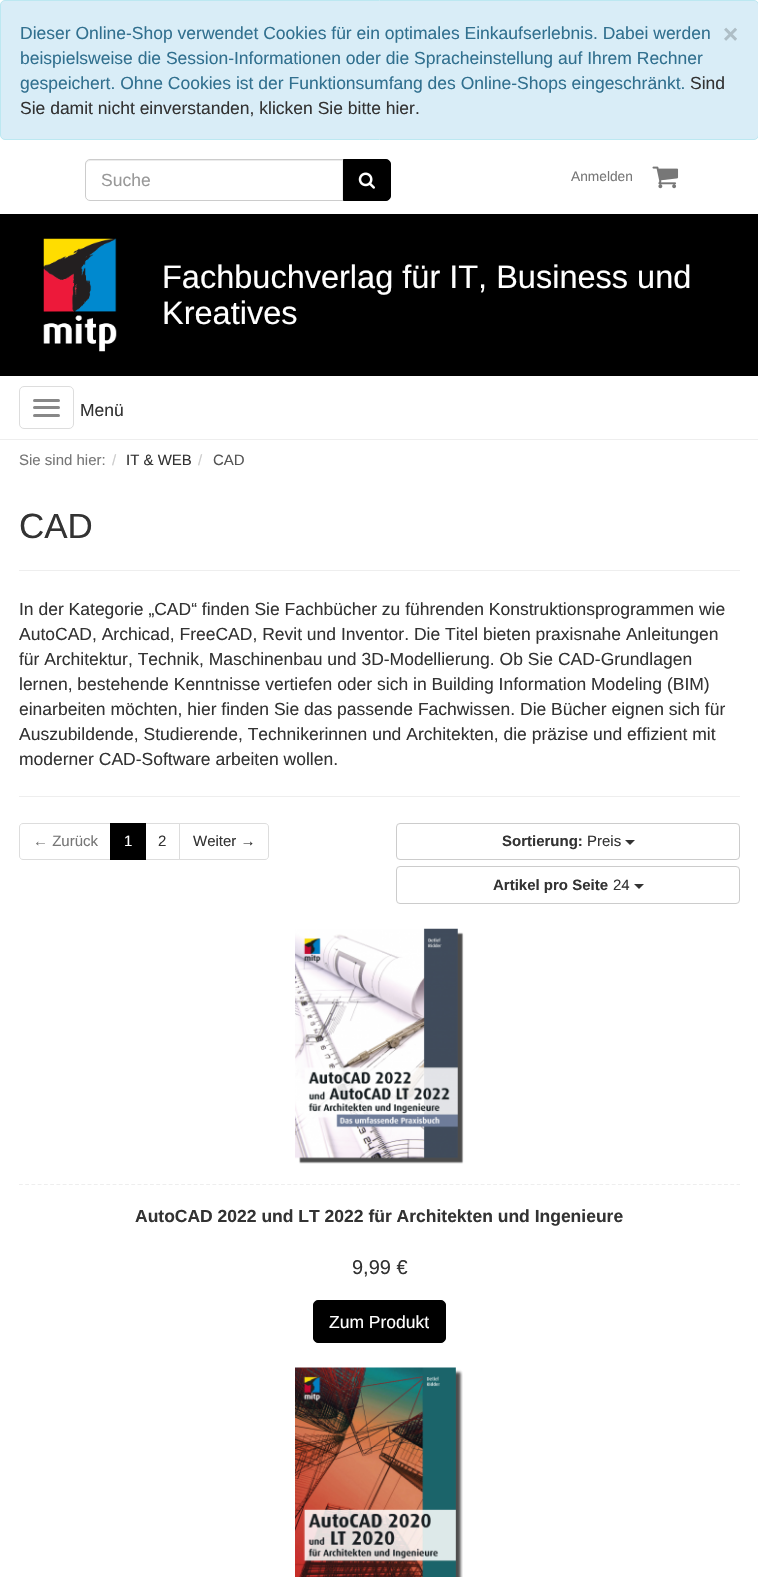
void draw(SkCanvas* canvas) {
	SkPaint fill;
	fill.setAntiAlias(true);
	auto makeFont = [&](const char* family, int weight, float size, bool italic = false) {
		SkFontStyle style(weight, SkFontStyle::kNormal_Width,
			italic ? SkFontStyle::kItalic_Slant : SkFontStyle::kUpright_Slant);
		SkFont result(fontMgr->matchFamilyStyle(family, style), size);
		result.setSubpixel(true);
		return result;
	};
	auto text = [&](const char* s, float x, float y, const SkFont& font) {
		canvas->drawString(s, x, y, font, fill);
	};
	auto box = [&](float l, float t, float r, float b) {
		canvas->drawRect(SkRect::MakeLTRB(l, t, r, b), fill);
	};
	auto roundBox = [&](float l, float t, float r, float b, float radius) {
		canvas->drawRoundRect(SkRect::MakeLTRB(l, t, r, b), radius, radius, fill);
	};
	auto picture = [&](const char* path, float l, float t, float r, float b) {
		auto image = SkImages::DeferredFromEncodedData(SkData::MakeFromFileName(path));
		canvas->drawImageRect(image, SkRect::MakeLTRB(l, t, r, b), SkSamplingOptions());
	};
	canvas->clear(0xFFFFFFFF);
	fill.setColor(0xFFD9EDF7);
	canvas->drawRoundRect(SkRect::MakeLTRB(0.5f, 0.5f, 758.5f, 139.5f), 4.5f, 4.5f, fill);
	fill.setStyle(SkPaint::kStroke_Style);
	fill.setStrokeWidth(1);
	fill.setColor(0xFFBCE8F1);
	canvas->drawRoundRect(SkRect::MakeLTRB(0.5f, 0.5f, 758.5f, 139.5f), 4.5f, 4.5f, fill);
	fill.setStyle(SkPaint::kFill_Style);
	fill.setColor(0xFFECECEC);
	canvas->drawPath(SkPathBuilder().moveTo(90, 161).lineTo(342, 161).lineTo(342, 200).lineTo(343, 200).lineTo(343, 160).lineTo(90, 160).cubicTo(88, 160, 86, 162, 86, 164).lineTo(86, 165).cubicTo(86, 163, 88, 161, 90, 161).close().detach(), fill);
	fill.setStyle(SkPaint::kStroke_Style);
	fill.setColor(0xFFCCCCCC);
	canvas->drawPath(SkPathBuilder().moveTo(90, 159.5f).lineTo(343.5f, 159.5f).lineTo(343.5f, 200.5f).lineTo(90, 200.5f).cubicTo(87.5f, 200.5f, 85.5f, 198.5f, 85.5f, 196).lineTo(85.5f, 164).cubicTo(85.5f, 161.5f, 87.5f, 159.5f, 90, 159.5f).close().detach(), fill);
	fill.setStyle(SkPaint::kFill_Style);
	fill.setColor(0xFF000000);
	canvas->drawPath(SkPathBuilder().moveTo(343.5f, 159.5f).lineTo(386, 159.5f).cubicTo(388.5f, 159.5f, 390.5f, 161.5f, 390.5f, 164).lineTo(390.5f, 196).cubicTo(390.5f, 198.5f, 388.5f, 200.5f, 386, 200.5f).lineTo(343.5f, 200.5f).close().detach(), fill);
	fill.setStyle(SkPaint::kStroke_Style);
	canvas->drawPath(SkPathBuilder().moveTo(343.5f, 159.5f).lineTo(386, 159.5f).cubicTo(388.5f, 159.5f, 390.5f, 161.5f, 390.5f, 164).lineTo(390.5f, 196).cubicTo(390.5f, 198.5f, 388.5f, 200.5f, 386, 200.5f).lineTo(343.5f, 200.5f).close().detach(), fill);
	picture("image0.png", 358, 172, 375, 189);
	picture("image1.png", 652, 166, 679, 189);
	fill.setStyle(SkPaint::kFill_Style);
	box(0, 214, 758, 376);
	picture("image2.png", 43, 238, 117, 352);
	fill.setColor(0xFFEEEEEE);
	box(0, 439, 758, 440);
	fill.setStyle(SkPaint::kStroke_Style);
	fill.setColor(0xFFDDDDDD);
	canvas->drawRoundRect(SkRect::MakeLTRB(19.5f, 386.5f, 73.5f, 428.5f), 4.5f, 4.5f, fill);
	fill.setStyle(SkPaint::kFill_Style);
	fill.setColor(0xFF888888);
	roundBox(33, 399, 60, 402, 1.5f);
	roundBox(33, 406, 60, 409, 1.5f);
	roundBox(33, 414, 60, 417, 1.5f);
	fill.setColor(0xFFEEEEEE);
	box(19, 570, 740, 571);
	box(19, 796, 740, 797);
	fill.setStyle(SkPaint::kStroke_Style);
	fill.setColor(0xFFDDDDDD);
	canvas->drawPath(SkPathBuilder().moveTo(23, 823.5f).lineTo(110.5f, 823.5f).lineTo(110.5f, 859.5f).lineTo(23, 859.5f).cubicTo(21, 859.5f, 19.5f, 858, 19.5f, 856).lineTo(19.5f, 827).cubicTo(19.5f, 825, 21, 823.5f, 23, 823.5f).close().detach(), fill);
	canvas->drawRect(SkRect::MakeLTRB(145.5f, 823.5f, 179.5f, 859.5f), fill);
	fill.setStyle(SkPaint::kFill_Style);
	fill.setColor(0xFF000000);
	box(110, 823, 146, 860);
	fill.setColor(0xFFFFFFFF);
	canvas->drawPath(SkPathBuilder().moveTo(179.5f, 823.5f).lineTo(265, 823.5f).cubicTo(267, 823.5f, 268.5f, 825, 268.5f, 827).lineTo(268.5f, 856).cubicTo(268.5f, 858, 267, 859.5f, 265, 859.5f).lineTo(179.5f, 859.5f).close().detach(), fill);
	fill.setStyle(SkPaint::kStroke_Style);
	fill.setColor(0xFFDDDDDD);
	canvas->drawPath(SkPathBuilder().moveTo(179.5f, 823.5f).lineTo(265, 823.5f).cubicTo(267, 823.5f, 268.5f, 825, 268.5f, 827).lineTo(268.5f, 856).cubicTo(268.5f, 858, 267, 859.5f, 265, 859.5f).lineTo(179.5f, 859.5f).close().detach(), fill);
	fill.setColor(0xFFCCCCCC);
	canvas->drawRoundRect(SkRect::MakeLTRB(396.5f, 823.5f, 739.5f, 859.5f), 3.5f, 3.5f, fill);
	fill.setStyle(SkPaint::kFill_Style);
	fill.setColor(0xFF333333);
	canvas->drawPath(SkPathBuilder().moveTo(625, 840).lineTo(635, 840).lineTo(630, 845).close().detach(), fill);
	fill.setStyle(SkPaint::kStroke_Style);
	fill.setColor(0xFFCCCCCC);
	canvas->drawRoundRect(SkRect::MakeLTRB(396.5f, 866.5f, 739.5f, 903.5f), 3.5f, 3.5f, fill);
	fill.setStyle(SkPaint::kFill_Style);
	fill.setColor(0xFF333333);
	canvas->drawPath(SkPathBuilder().moveTo(634, 884).lineTo(644, 884).lineTo(639, 889).close().detach(), fill);
	fill.setStyle(SkPaint::kStroke_Style);
	fill.setStrokeWidth(1.2f);
	fill.setColor(0xFFEEEEEE);
	fill.setPathEffect(SkDashPathEffect::Make({{3.75f, 2.49f}}, 0));
	canvas->drawPath(SkPathBuilder().moveTo(19, 1184.5f).lineTo(740, 1184.5f).detach(), fill);
	fill.setPathEffect(nullptr);
	picture("image3.png", 295, 928, 464, 1164);
	fill.setStyle(SkPaint::kFill_Style);
	fill.setColor(0xFF000000);
	canvas->drawRoundRect(SkRect::MakeLTRB(313.5f, 1300.5f, 445.5f, 1342.5f), 4.5f, 4.5f, fill);
	fill.setStyle(SkPaint::kStroke_Style);
	fill.setStrokeWidth(1);
	canvas->drawRoundRect(SkRect::MakeLTRB(313.5f, 1300.5f, 445.5f, 1342.5f), 4.5f, 4.5f, fill);
	picture("image4.png", 295, 1367, 463, 1577);
	auto font1 = makeFont("Liberation Sans", 400, 17.5f);
	fill.setStyle(SkPaint::kFill_Style);
	fill.setColor(0xFF31708F);
	text("Dieser Online-Shop verwendet Cookies für ein optimales Einkaufserlebnis. Dabei werden", 20, 39, font1);
	auto font2 = makeFont("Liberation Sans", 700, 26);
	fill.setColor(0xFFAEBEC6);
	text("×", 723, 43, font2);
	fill.setColor(0xFF31708F);
	text("beispielsweise die Session-Informationen oder die Spracheinstellung auf Ihrem Rechner", 20, 64, font1);
	text("gespeichert. Ohne Cookies ist der Funktionsumfang des Online-Shops eingeschränkt.", 20, 89, font1);
	fill.setColor(0xFF333333);
	text("Sind", 690, 89, font1);
	text("Sie damit nicht einverstanden, klicken Sie bitte hier.", 20, 114, font1);
	fill.setColor(0xFF999999);
	text("Suche", 101, 186, font1);
	auto font3 = makeFont("Liberation Sans", 400, 13.75f);
	fill.setColor(0xFF777777);
	text("Anmelden", 571, 181, font3);
	auto font4 = makeFont("Liberation Sans", 400, 32.5f);
	fill.setColor(0xFFFFFFFF);
	text("Fachbuchverlag für IT, Business und", 162, 288, font4);
	text("Kreatives", 162, 324, font4);
	fill.setColor(0xFF333333);
	text("Menü", 80, 416, font1);
	auto font5 = makeFont("Liberation Sans", 400, 15);
	fill.setColor(0xFF777777);
	text("Sie sind hier:", 19, 465, font5);
	fill.setColor(0xFFCCCCCC);
	text("/", 112, 465, font5);
	fill.setColor(0xFF333333);
	text("IT & WEB", 126, 465, font5);
	fill.setColor(0xFFCCCCCC);
	text("/", 198, 465, font5);
	fill.setColor(0xFF555555);
	text("CAD", 213, 465, font5);
	auto font6 = makeFont("Liberation Sans", 400, 35);
	fill.setColor(0xFF333333);
	text("CAD", 19, 538, font6);
	text("In der Kategorie „CAD“ finden Sie Fachbücher zu führenden Konstruktionsprogrammen wie", 19, 615, font1);
	text("AutoCAD, Archicad, FreeCAD, Revit und Inventor. Die Titel bieten praxisnahe Anleitungen", 19, 640, font1);
	text("für Architektur, Technik, Maschinenbau und 3D-Modellierung. Ob Sie CAD-Grundlagen", 19, 665, font1);
	text("lernen, bestehende Kenntnisse vertiefen oder sich in Building Information Modeling (BIM)", 19, 690, font1);
	text("einarbeiten möchten, hier finden Sie das passende Fachwissen. Die Bücher eignen sich für", 19, 715, font1);
	text("Auszubildende, Studierende, Technikerinnen und Architekten, die präzise und effizient mit", 19, 740, font1);
	text("moderner CAD-Software arbeiten wollen.", 19, 765, font1);
	fill.setColor(0xFF777777);
	text("← Zurück", 33, 846, font5);
	fill.setColor(0xFFFFFFFF);
	text("1", 124, 846, font5);
	fill.setColor(0xFF333333);
	text("2", 158, 846, font5);
	text("Weiter →", 193, 846, font5);
	auto font7 = makeFont("Liberation Sans", 700, 15);
	text("Sortierung:", 502, 846, font7);
	text("Preis", 587, 846, font5);
	text("Artikel pro Seite", 493, 890, font7);
	text("24", 613, 890, font5);
	auto font8 = makeFont("Liberation Sans", 700, 17.5f);
	text("AutoCAD 2022 und LT 2022 für Architekten und Ingenieure", 135, 1222, font8);
	auto font9 = makeFont("Liberation Sans", 400, 20);
	text("9,99 €", 352, 1274, font9);
	fill.setColor(0xFFFFFFFF);
	text("Zum Produkt", 329, 1328, font1);
}
